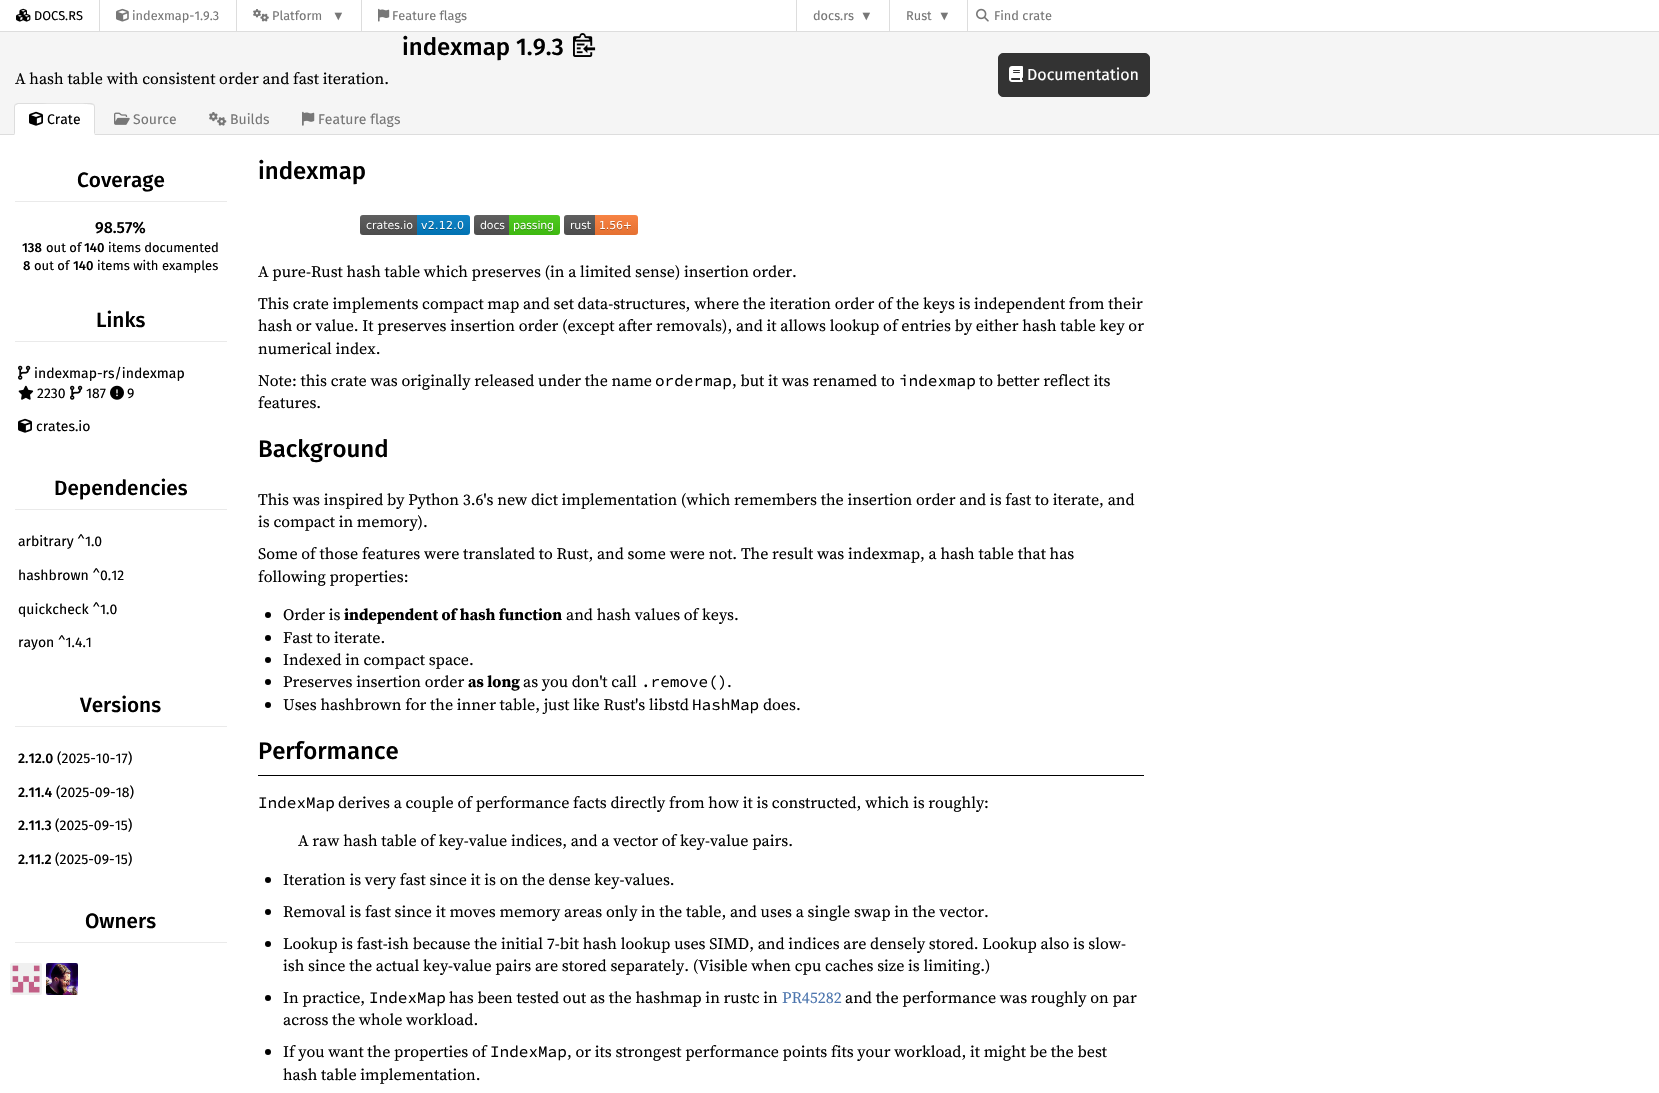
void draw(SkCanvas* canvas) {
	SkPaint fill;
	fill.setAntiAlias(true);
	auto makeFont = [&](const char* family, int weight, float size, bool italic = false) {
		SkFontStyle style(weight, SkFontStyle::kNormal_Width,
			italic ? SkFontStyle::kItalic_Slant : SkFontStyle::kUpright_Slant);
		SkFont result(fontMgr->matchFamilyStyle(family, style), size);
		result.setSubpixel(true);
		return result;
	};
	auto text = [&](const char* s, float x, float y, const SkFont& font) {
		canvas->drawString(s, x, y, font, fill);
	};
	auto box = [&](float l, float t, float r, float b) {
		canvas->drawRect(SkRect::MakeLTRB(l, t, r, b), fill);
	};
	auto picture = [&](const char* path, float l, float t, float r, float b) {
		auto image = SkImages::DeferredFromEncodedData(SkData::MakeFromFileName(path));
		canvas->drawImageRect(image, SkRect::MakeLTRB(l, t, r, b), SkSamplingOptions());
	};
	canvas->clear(0xFFFFFFFF);
	fill.setColor(0xFFDDDDDD);
	box(0, 31, 1659, 32);
	picture("image0.png", 16, 8, 31, 22);
	box(99, 0, 100, 31);
	picture("image1.png", 116, 8, 129, 22);
	box(236, 0, 237, 31);
	picture("image2.png", 253, 9, 269, 22);
	box(361, 0, 362, 31);
	picture("image3.png", 378, 8, 390, 22);
	box(796, 0, 797, 31);
	box(889, 0, 890, 31);
	box(967, 0, 968, 31);
	picture("image4.png", 976, 8, 989, 22);
	fill.setColor(0xFFF5F5F5);
	box(0, 32, 1659, 134);
	fill.setColor(0xFFDDDDDD);
	box(0, 134, 1659, 135);
	picture("image5.png", 573, 33, 596, 57);
	fill.setColor(0xFFFFFFFF);
	canvas->drawPath(SkPathBuilder().moveTo(18, 104).lineTo(91, 104).cubicTo(92.5f, 104, 94, 105.5f, 94, 107).lineTo(94, 133).lineTo(15, 133).lineTo(15, 107).cubicTo(15, 105.5f, 16.5f, 104, 18, 104).close().detach(), fill);
	fill.setColor(0xFFDDDDDD);
	canvas->drawPath(SkPathBuilder().moveTo(18, 103).lineTo(15, 104).lineTo(16, 105).lineTo(18, 104).lineTo(30, 104).cubicTo(37, 104, 91, 103, 93, 105).lineTo(94, 104).lineTo(91, 103).close().detach(), fill);
	canvas->drawPath(SkPathBuilder().moveTo(95, 135).lineTo(95, 107).cubicTo(95, 106, 94.5f, 105, 94, 104).lineTo(93, 105).cubicTo(94, 105, 94, 106, 94, 107).lineTo(94, 133).close().detach(), fill);
	fill.setColor(0xFFFFFFFF);
	canvas->drawPath(SkPathBuilder().moveTo(95, 135).lineTo(94, 133).lineTo(15, 133).lineTo(14, 135).close().detach(), fill);
	fill.setColor(0xFFDDDDDD);
	canvas->drawPath(SkPathBuilder().moveTo(14, 135).lineTo(15, 133).lineTo(15, 107).cubicTo(15, 106, 15, 105, 16, 105).lineTo(15, 104).cubicTo(14.5f, 105, 14, 106, 14, 107).close().detach(), fill);
	picture("image6.png", 29, 111, 43, 126);
	picture("image7.png", 114, 112, 130, 125);
	picture("image8.png", 209, 112, 227, 126);
	picture("image9.png", 302, 111, 315, 126);
	fill.setColor(0xFF333333);
	canvas->drawRoundRect(SkRect::MakeLTRB(998.5f, 53.5f, 1149.5f, 96.5f), 4.5f, 4.5f, fill);
	fill.setStyle(SkPaint::kStroke_Style);
	fill.setStrokeWidth(1);
	canvas->drawRoundRect(SkRect::MakeLTRB(998.5f, 53.5f, 1149.5f, 96.5f), 4.5f, 4.5f, fill);
	picture("image10.png", 1009, 66, 1023, 82);
	fill.setStyle(SkPaint::kFill_Style);
	fill.setColor(0xFFEAEAEA);
	box(15, 201, 227, 202);
	box(15, 341, 227, 342);
	picture("image11.png", 18, 365, 31, 380);
	picture("image12.png", 18, 385, 34, 400);
	picture("image11.png", 70, 385, 83, 400);
	picture("image13.png", 110, 385, 124, 400);
	picture("image6.png", 18, 418, 32, 433);
	box(15, 509, 227, 510);
	box(15, 726, 227, 727);
	box(15, 942, 227, 943);
	picture("image14.png", 10, 963, 42, 995);
	picture("image15.png", 46, 963, 78, 995);
	picture("image16.png", 360, 215, 470, 235);
	picture("image17.png", 474, 215, 560, 235);
	picture("image18.png", 564, 215, 638, 235);
	fill.setColor(0xFF000000);
	canvas->drawCircle(268, 615, 3, fill);
	canvas->drawCircle(268, 638, 3, fill);
	canvas->drawCircle(268, 660, 3, fill);
	canvas->drawCircle(268, 682, 3, fill);
	canvas->drawCircle(268, 705, 3, fill);
	box(258, 775, 1144, 776);
	canvas->drawCircle(268, 880, 3, fill);
	canvas->drawCircle(268, 912, 3, fill);
	canvas->drawCircle(268, 944, 3, fill);
	canvas->drawCircle(268, 998, 3, fill);
	canvas->drawCircle(268, 1052, 3, fill);
	auto font1 = makeFont("Fira Sans", 400, 12.75f);
	text("DOCS.RS", 34, 20, font1);
	fill.setColor(0xFF777777);
	text("indexmap-1.9.3", 132, 20, font1);
	text("Platform", 272, 20, font1);
	auto font2 = makeFont("Liberation Sans", 400, 12.75f);
	text("▼", 332, 20, font2);
	text("Feature flags", 392, 20, font1);
	text("docs.rs", 813, 20, font1);
	text("▼", 860, 20, font2);
	text("Rust", 906, 20, font1);
	text("▼", 938, 20, font2);
	text("Find crate", 994, 20, font1);
	auto font3 = makeFont("Fira Sans", 500, 24);
	fill.setColor(0xFF000000);
	text("indexmap 1.9.3", 402, 55, font3);
	auto font4 = makeFont("Source Serif 4", 400, 16);
	text("A hash table with consistent order and fast iteration.", 15, 84, font4);
	auto font5 = makeFont("Fira Sans", 400, 14);
	text("Crate", 47, 124, font5);
	fill.setColor(0xFF777777);
	text("Source", 133, 124, font5);
	text("Builds", 230, 124, font5);
	text("Feature flags", 318, 124, font5);
	auto font6 = makeFont("Fira Sans", 400, 16);
	fill.setColor(0xFFFFFFFF);
	text("Documentation", 1027, 80, font6);
	auto font7 = makeFont("Fira Sans", 500, 20.75f);
	fill.setColor(0xFF000000);
	text("Coverage", 77, 187, font7);
	auto font8 = makeFont("Fira Sans", 500, 16);
	text("98.57%", 95, 233, font8);
	auto font9 = makeFont("Fira Sans", 500, 13);
	text("138", 22, 252, font9);
	auto font10 = makeFont("Fira Sans", 400, 13);
	text("out of", 46, 252, font10);
	text("140", 84, 252, font9);
	text("items documented", 108, 252, font10);
	text("8", 23, 270, font9);
	text("out of", 34, 270, font10);
	text("140", 73, 270, font9);
	text("items with examples", 97, 270, font10);
	text("Links", 96, 327, font7);
	text("indexmap-rs/indexmap", 34, 378, font5);
	text("2230", 37, 398, font5);
	text("187", 86, 398, font5);
	text("9", 127, 398, font5);
	text("crates.io", 36, 431, font5);
	text("Dependencies", 54, 495, font7);
	text("arbitrary ^1.0", 18, 546, font5);
	text("hashbrown ^0.12", 18, 580, font5);
	text("quickcheck ^1.0", 18, 614, font5);
	text("rayon ^1.4.1", 18, 647, font5);
	text("Versions", 80, 712, font7);
	auto font11 = makeFont("Fira Sans", 500, 14);
	text("2.12.0", 18, 763, font11);
	text("(2025-10-17)", 57, 763, font5);
	text("2.11.4", 18, 797, font11);
	text("(2025-09-18)", 56, 797, font5);
	text("2.11.3", 18, 830, font11);
	text("(2025-09-15)", 55, 830, font5);
	text("2.11.2", 18, 864, font11);
	text("(2025-09-15)", 55, 864, font5);
	text("Owners", 85, 928, font7);
	text("indexmap", 258, 179, font3);
	text("A pure-Rust hash table which preserves (in a limited sense) insertion order.", 258, 277, font4);
	text("This crate implements compact map and set data-structures, where the iteration order of the keys is independent from their", 258, 309, font4);
	text("hash or value. It preserves insertion order (except after removals), and it allows lookup of entries by either hash table key or", 258, 331, font4);
	text("numerical index.", 258, 354, font4);
	text("Note: this crate was originally released under the name", 258, 386, font4);
	auto font12 = makeFont("Source Code Pro", 400, 16);
	text("ordermap", 655, 386, font12);
	text(", but it was renamed to", 732, 386, font4);
	text("indexmap", 899, 386, font12);
	text("to better reflect its", 979, 386, font4);
	text("features.", 258, 408, font4);
	text("Background", 258, 457, font3);
	text("This was inspired by Python 3.6's new dict implementation (which remembers the insertion order and is fast to iterate, and", 258, 505, font4);
	text("is compact in memory).", 258, 527, font4);
	text("Some of those features were translated to Rust, and some were not. The result was indexmap, a hash table that has", 258, 559, font4);
	text("following properties:", 258, 582, font4);
	text("Order is", 283, 620, font4);
	auto font13 = makeFont("Source Serif 4", 700, 16);
	text("independent of hash function", 344, 620, font13);
	text("and hash values of keys.", 566, 620, font4);
	text("Fast to iterate.", 283, 643, font4);
	text("Indexed in compact space.", 283, 665, font4);
	text("Preserves insertion order", 283, 687, font4);
	text("as long", 468, 687, font13);
	text("as you don't call", 523, 687, font4);
	text(".remove()", 641, 687, font12);
	text(".", 727, 687, font4);
	text("Uses hashbrown for the inner table, just like Rust's libstd", 283, 710, font4);
	text("HashMap", 692, 710, font12);
	text("does.", 763, 710, font4);
	text("Performance", 258, 759, font3);
	text("IndexMap", 258, 808, font12);
	text("derives a couple of performance facts directly from how it is constructed, which is roughly:", 338, 808, font4);
	text("A raw hash table of key-value indices, and a vector of key-value pairs.", 298, 846, font4);
	text("Iteration is very fast since it is on the dense key-values.", 283, 885, font4);
	text("Removal is fast since it moves memory areas only in the table, and uses a single swap in the vector.", 283, 917, font4);
	text("Lookup is fast-ish because the initial 7-bit hash lookup uses SIMD, and indices are densely stored. Lookup also is slow-", 283, 949, font4);
	text("ish since the actual key-value pairs are stored separately. (Visible when cpu caches size is limiting.)", 283, 971, font4);
	text("In practice,", 283, 1003, font4);
	text("IndexMap", 369, 1003, font12);
	text("has been tested out as the hashmap in rustc in", 449, 1003, font4);
	fill.setColor(0xFF4D76AE);
	text("PR45282", 782, 1003, font4);
	fill.setColor(0xFF000000);
	text("and the performance was roughly on par", 845, 1003, font4);
	text("across the whole workload.", 283, 1025, font4);
	text("If you want the properties of", 283, 1057, font4);
	text("IndexMap", 490, 1057, font12);
	text(", or its strongest performance points fits your workload, it might be the best", 567, 1057, font4);
	text("hash table implementation.", 283, 1080, font4);
}
